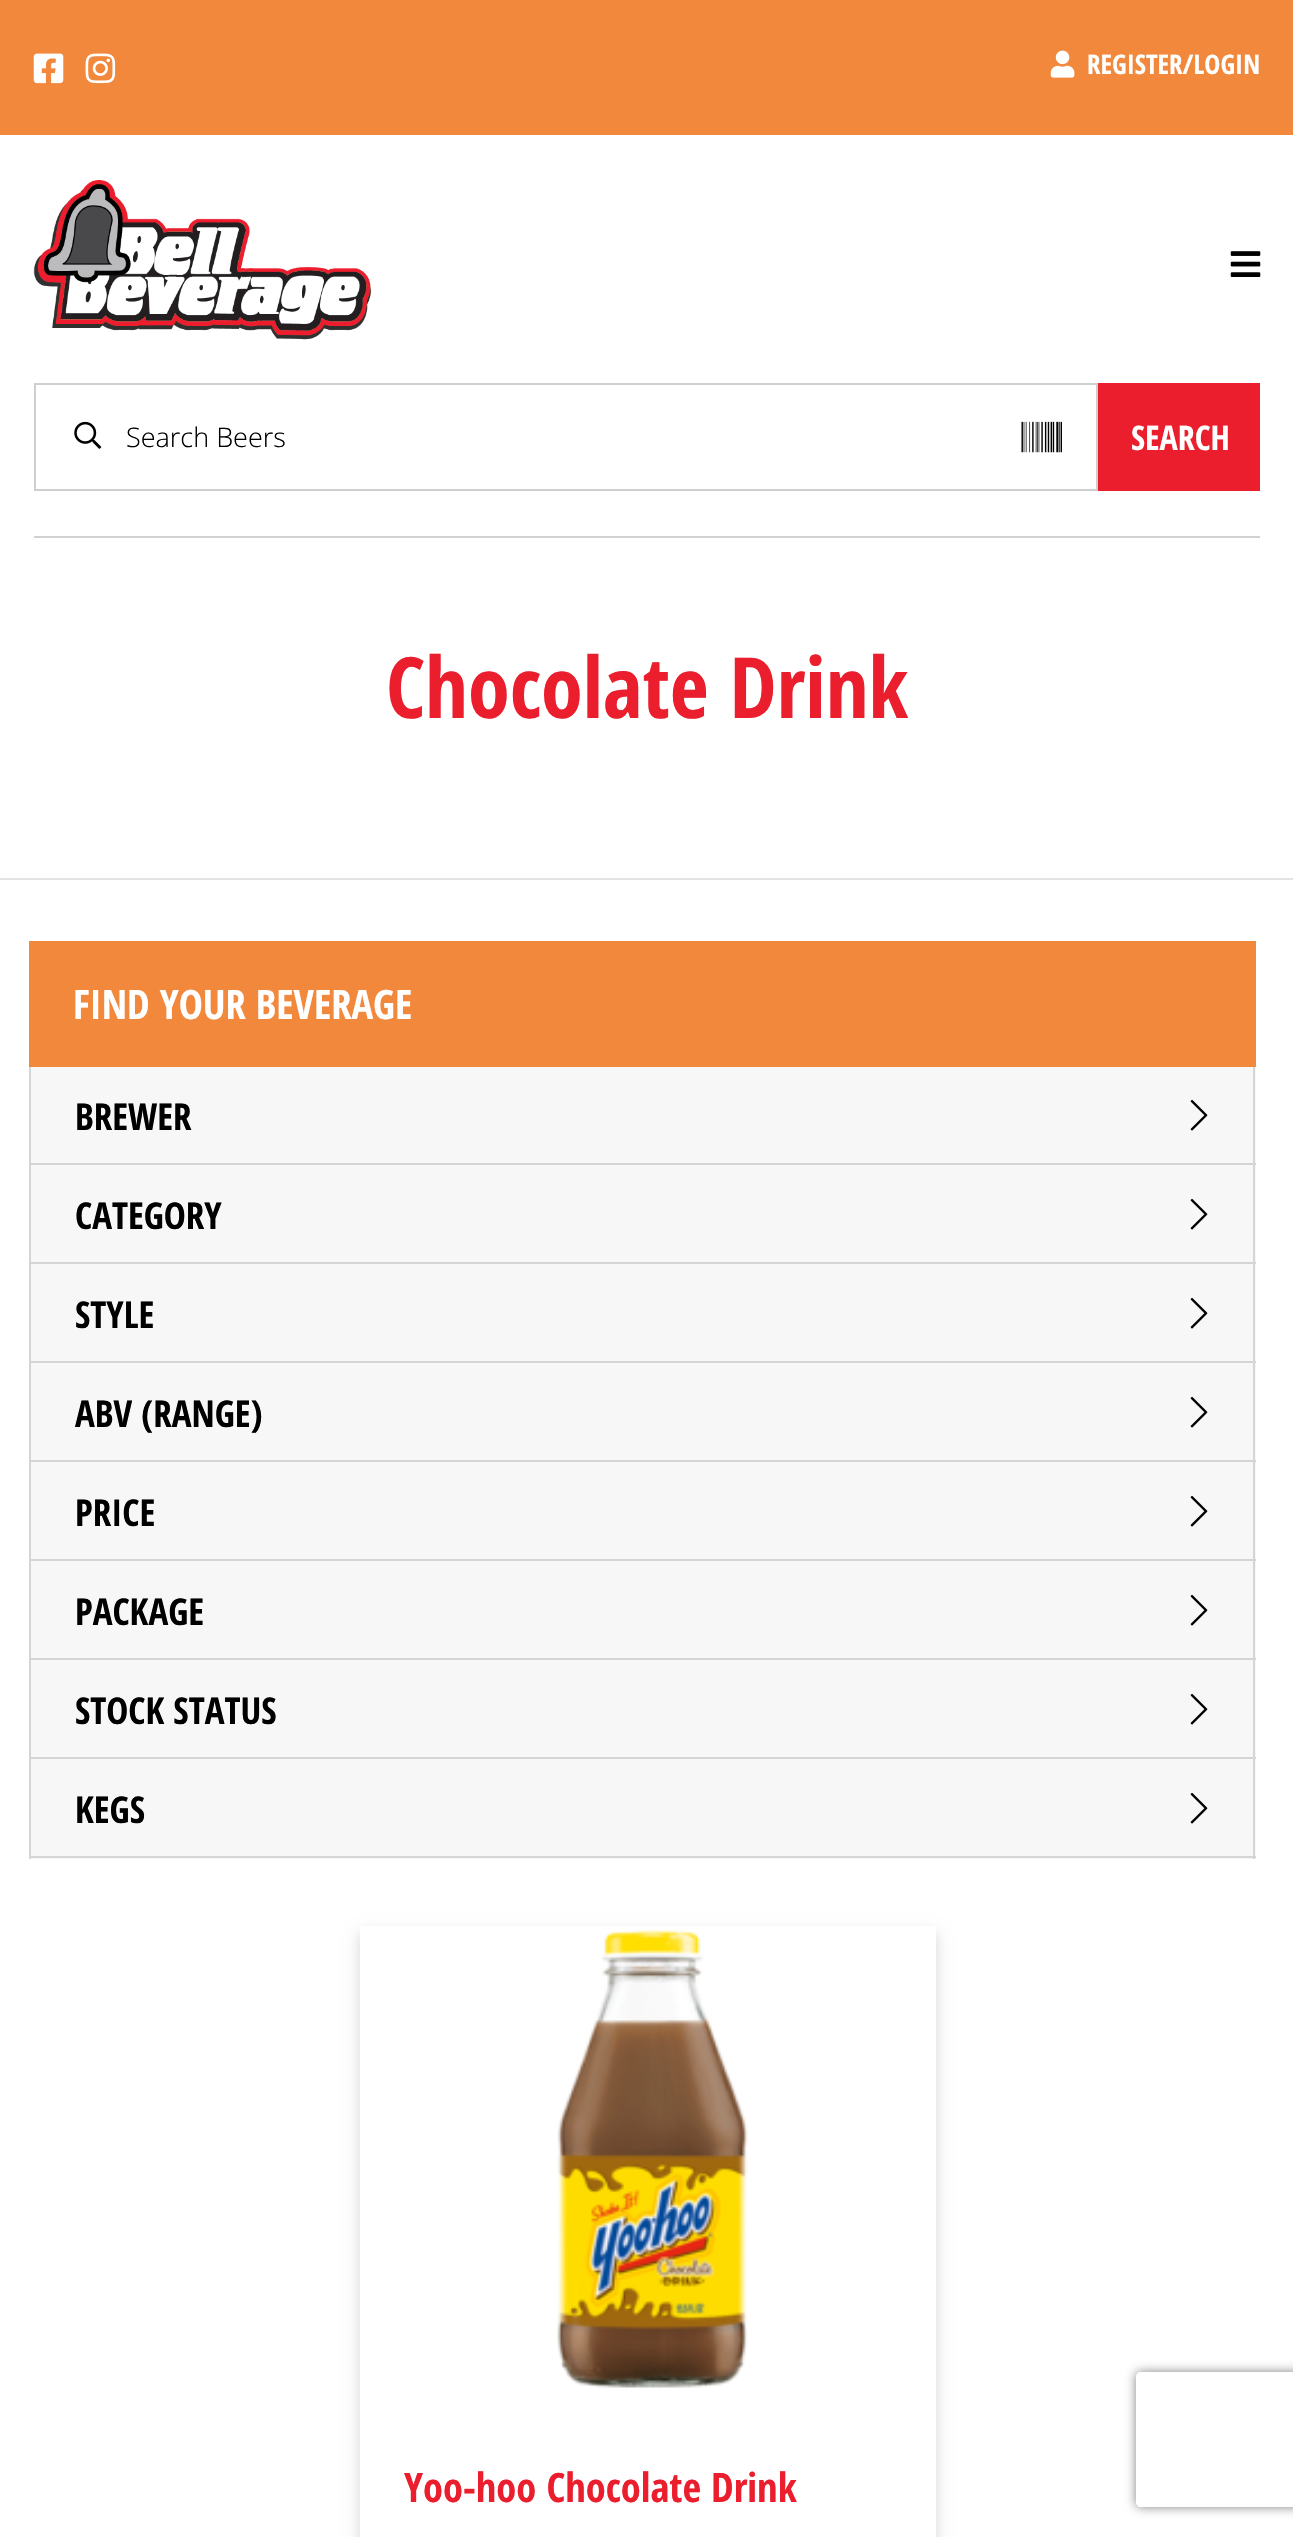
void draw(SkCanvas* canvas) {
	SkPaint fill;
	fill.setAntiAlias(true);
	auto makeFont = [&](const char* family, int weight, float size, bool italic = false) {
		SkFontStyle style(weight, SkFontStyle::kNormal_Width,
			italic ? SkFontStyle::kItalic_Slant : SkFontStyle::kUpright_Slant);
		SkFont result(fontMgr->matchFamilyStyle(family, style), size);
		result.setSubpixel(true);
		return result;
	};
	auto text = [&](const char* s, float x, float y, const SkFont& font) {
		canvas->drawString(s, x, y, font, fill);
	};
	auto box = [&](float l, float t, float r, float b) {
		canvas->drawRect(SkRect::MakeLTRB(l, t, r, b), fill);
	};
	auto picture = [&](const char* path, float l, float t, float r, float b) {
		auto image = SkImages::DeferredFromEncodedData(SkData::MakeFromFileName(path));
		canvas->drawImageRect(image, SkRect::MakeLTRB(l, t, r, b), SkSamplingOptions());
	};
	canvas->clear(0xFFFFFFFF);
	fill.setColor(0xFFF1883C);
	box(0, 0, 1293, 135);
	picture("image0.png", 33, 53, 64, 84);
	picture("image1.png", 85, 53, 116, 84);
	picture("image2.png", 1050, 50, 1075, 78);
	fill.setColor(0xFFD1D1D1);
	box(34, 536, 1260, 538);
	picture("image3.png", 33, 180, 372, 340);
	picture("image4.png", 1230, 251, 1261, 277);
	fill.setStyle(SkPaint::kStroke_Style);
	fill.setStrokeWidth(2);
	fill.setColor(0xFFCFCFCF);
	canvas->drawRect(SkRect::MakeLTRB(35, 384, 1097, 490), fill);
	picture("image5.png", 74, 421, 102, 449);
	picture("image6.png", 1021, 421, 1062, 453);
	fill.setStyle(SkPaint::kFill_Style);
	fill.setColor(0xFFEB1E2D);
	box(1098, 383, 1260, 491);
	fill.setColor(0xFFE3E3E3);
	box(0, 878, 1293, 880);
	fill.setColor(0xFFF1883C);
	box(29, 941, 1256, 1067);
	fill.setColor(0xFFF7F7F7);
	box(31, 1067, 1256, 1859);
	fill.setColor(0xFFD5D5D5);
	box(1253, 1067, 1255, 1859);
	box(29, 1163, 1256, 1165);
	box(29, 1067, 31, 1166);
	picture("image7.png", 1190, 1099, 1208, 1131);
	box(29, 1262, 1256, 1264);
	box(29, 1166, 31, 1265);
	picture("image7.png", 1190, 1198, 1208, 1230);
	box(29, 1361, 1256, 1363);
	box(29, 1265, 31, 1364);
	picture("image7.png", 1190, 1297, 1208, 1329);
	box(29, 1460, 1256, 1462);
	box(29, 1364, 31, 1463);
	picture("image7.png", 1190, 1396, 1208, 1428);
	box(29, 1559, 1256, 1561);
	box(29, 1463, 31, 1562);
	picture("image7.png", 1190, 1495, 1208, 1527);
	box(29, 1658, 1256, 1660);
	box(29, 1562, 31, 1661);
	picture("image7.png", 1190, 1594, 1208, 1626);
	box(29, 1757, 1256, 1759);
	box(29, 1661, 31, 1760);
	picture("image7.png", 1190, 1693, 1208, 1725);
	box(29, 1856, 1256, 1858);
	box(29, 1760, 31, 1859);
	picture("image7.png", 1190, 1792, 1208, 1824);
	canvas->save();
	canvas->clipPath(SkPathBuilder(SkPathFillType::kEvenOdd).moveTo(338, 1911).lineTo(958, 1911).lineTo(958, 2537).lineTo(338, 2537).close().moveTo(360, 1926).lineTo(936, 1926).lineTo(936, 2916).lineTo(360, 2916).close().detach(), true);
	fill.setColor(0x29000000);
	fill.setMaskFilter(SkMaskFilter::MakeBlur(kNormal_SkBlurStyle, 7));
	canvas->drawRect(SkRect::MakeLTRB(360, 1933, 936, 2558), fill);
	fill.setMaskFilter(nullptr);
	canvas->restore();
	picture("image8.png", 556, 1930, 748, 2388);
	canvas->save();
	canvas->clipPath(SkPathBuilder(SkPathFillType::kEvenOdd).moveTo(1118, 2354).lineTo(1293, 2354).lineTo(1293, 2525).lineTo(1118, 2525).close().moveTo(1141, 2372).lineTo(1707, 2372).cubicTo(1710, 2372, 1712, 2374, 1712, 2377).lineTo(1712, 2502).cubicTo(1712, 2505, 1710, 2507, 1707, 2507).lineTo(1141, 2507).cubicTo(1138, 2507, 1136, 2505, 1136, 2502).lineTo(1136, 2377).cubicTo(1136, 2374, 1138, 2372, 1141, 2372).close().detach(), true);
	fill.setColor(0xFF808080);
	fill.setMaskFilter(SkMaskFilter::MakeBlur(kNormal_SkBlurStyle, 5.5f));
	canvas->drawRoundRect(SkRect::MakeLTRB(1136, 2372, 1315, 2507), 5, 5, fill);
	fill.setMaskFilter(nullptr);
	canvas->restore();
	auto font1 = makeFont("Open Sans Condensed", 700, 27);
	fill.setColor(0xFFFFFFFF);
	text("REGISTER/LOGIN", 1087, 74, font1);
	auto font2 = makeFont("Open Sans", 300, 27);
	fill.setColor(0xFF000000);
	text("Search Beers", 126, 447, font2);
	auto font3 = makeFont("Open Sans Condensed", 700, 34);
	fill.setColor(0xFFFFFFFF);
	text("SEARCH", 1131, 450, font3);
	auto font4 = makeFont("Open Sans Condensed", 700, 84.5f);
	fill.setColor(0xFFEB1E2D);
	text("Chocolate Drink", 386, 718, font4);
	auto font5 = makeFont("Open Sans Condensed", 700, 40.5f);
	fill.setColor(0xFFFFFFFF);
	text("FIND YOUR BEVERAGE", 73, 1019, font5);
	auto font6 = makeFont("Open Sans Condensed", 700, 37);
	fill.setColor(0xFF000000);
	text("BREWER", 75, 1130, font6);
	text("CATEGORY", 75, 1229, font6);
	text("STYLE", 75, 1328, font6);
	text("ABV (RANGE)", 75, 1427, font6);
	text("PRICE", 75, 1526, font6);
	text("PACKAGE", 75, 1625, font6);
	text("STOCK STATUS", 75, 1724, font6);
	text("KEGS", 75, 1823, font6);
	fill.setColor(0xFFEB1E2D);
	text("Yoo-hoo Chocolate Drink", 404, 2502, font5);
}
